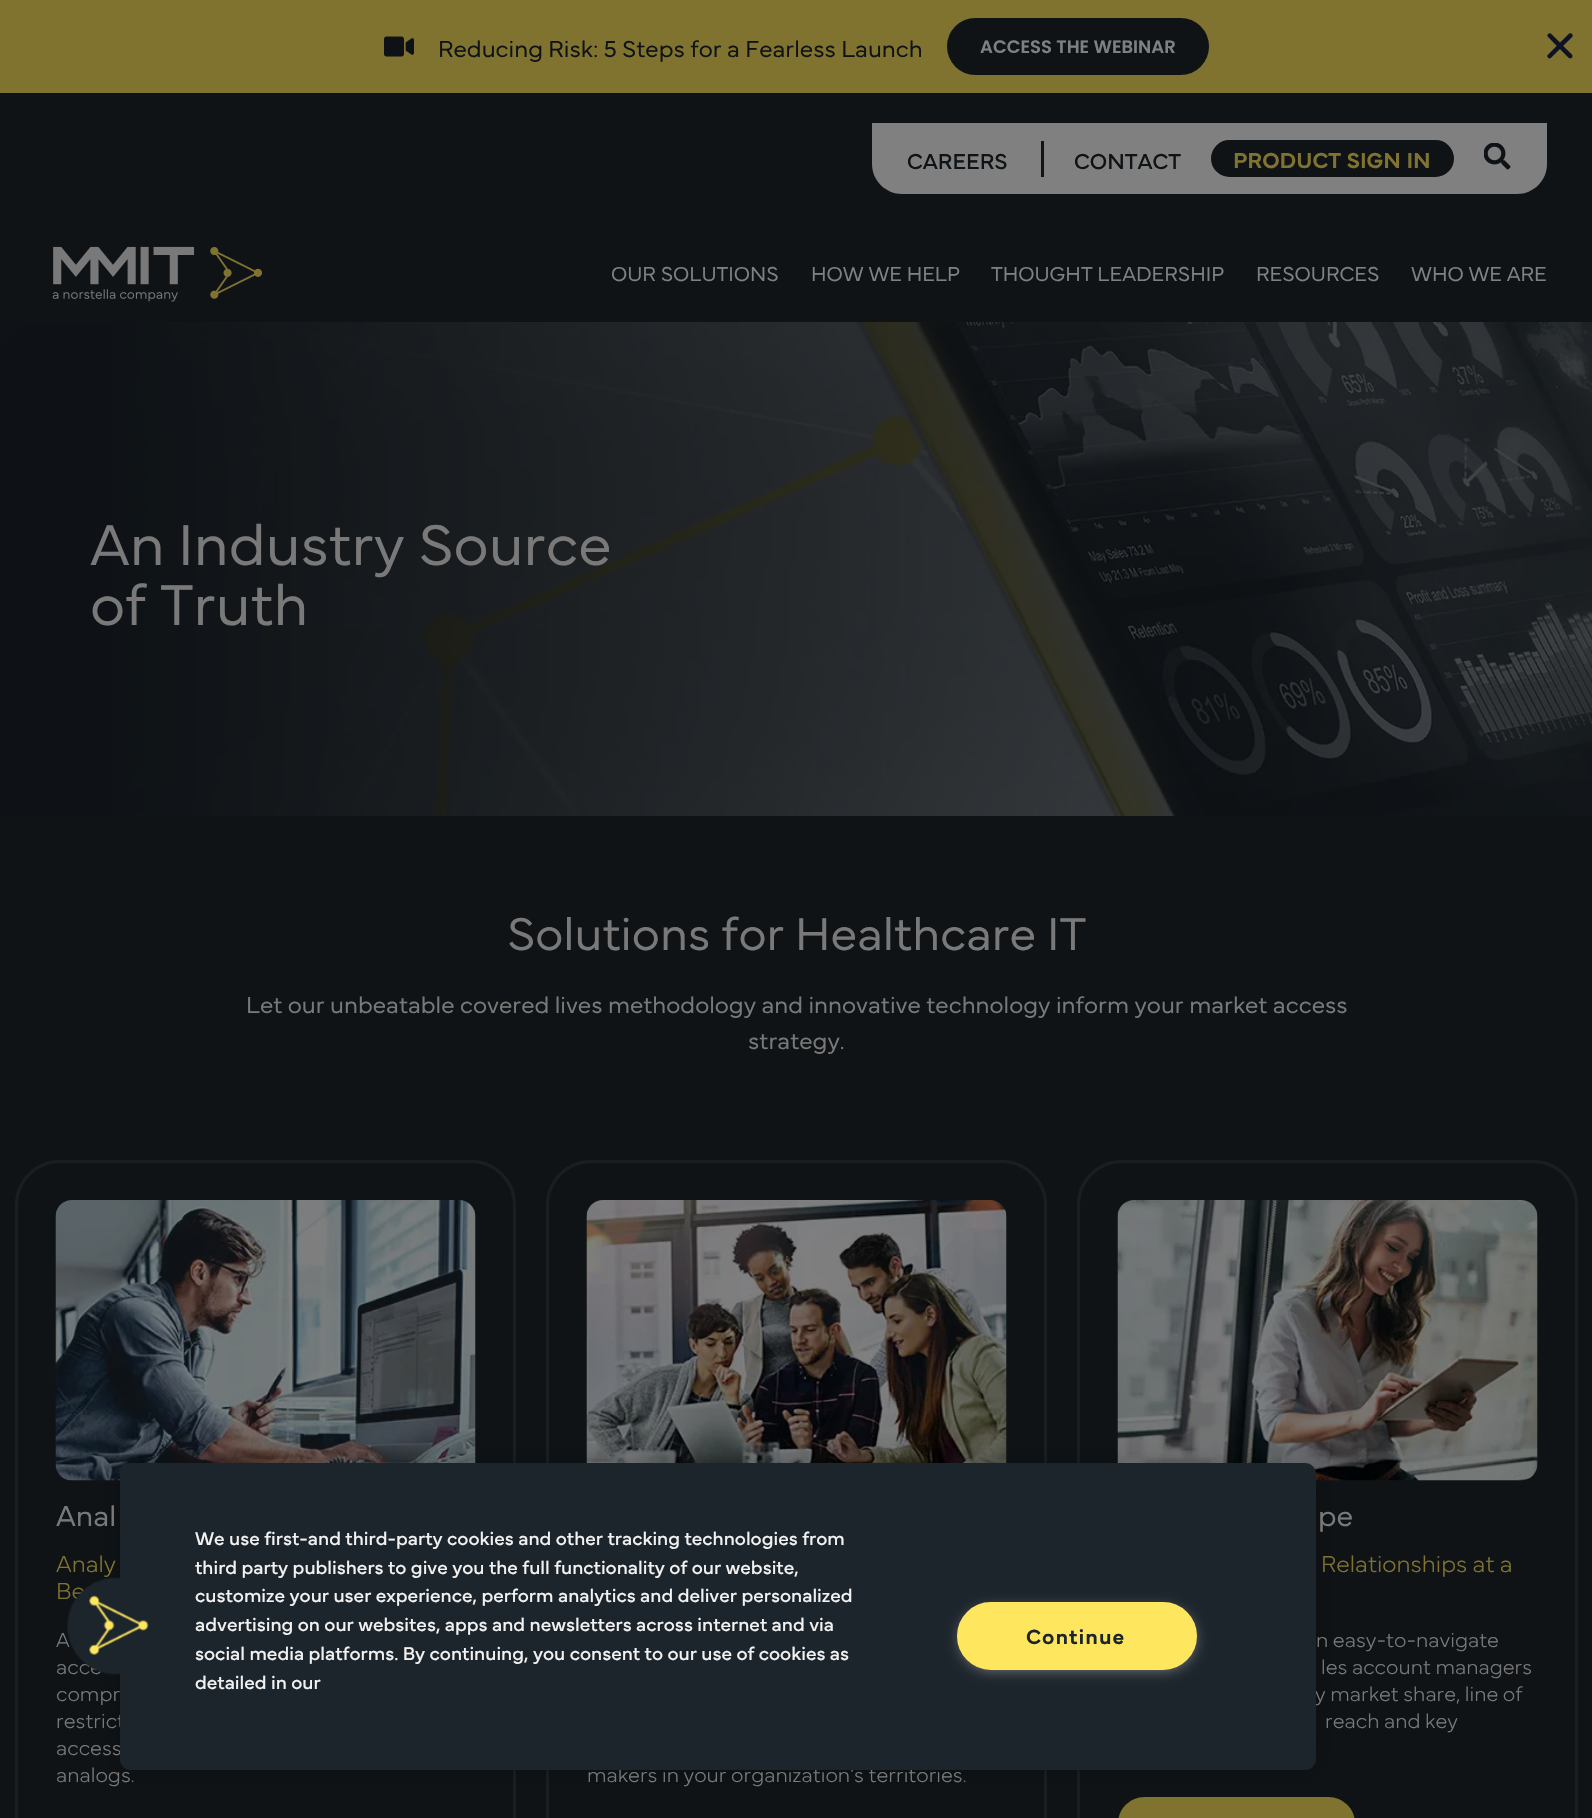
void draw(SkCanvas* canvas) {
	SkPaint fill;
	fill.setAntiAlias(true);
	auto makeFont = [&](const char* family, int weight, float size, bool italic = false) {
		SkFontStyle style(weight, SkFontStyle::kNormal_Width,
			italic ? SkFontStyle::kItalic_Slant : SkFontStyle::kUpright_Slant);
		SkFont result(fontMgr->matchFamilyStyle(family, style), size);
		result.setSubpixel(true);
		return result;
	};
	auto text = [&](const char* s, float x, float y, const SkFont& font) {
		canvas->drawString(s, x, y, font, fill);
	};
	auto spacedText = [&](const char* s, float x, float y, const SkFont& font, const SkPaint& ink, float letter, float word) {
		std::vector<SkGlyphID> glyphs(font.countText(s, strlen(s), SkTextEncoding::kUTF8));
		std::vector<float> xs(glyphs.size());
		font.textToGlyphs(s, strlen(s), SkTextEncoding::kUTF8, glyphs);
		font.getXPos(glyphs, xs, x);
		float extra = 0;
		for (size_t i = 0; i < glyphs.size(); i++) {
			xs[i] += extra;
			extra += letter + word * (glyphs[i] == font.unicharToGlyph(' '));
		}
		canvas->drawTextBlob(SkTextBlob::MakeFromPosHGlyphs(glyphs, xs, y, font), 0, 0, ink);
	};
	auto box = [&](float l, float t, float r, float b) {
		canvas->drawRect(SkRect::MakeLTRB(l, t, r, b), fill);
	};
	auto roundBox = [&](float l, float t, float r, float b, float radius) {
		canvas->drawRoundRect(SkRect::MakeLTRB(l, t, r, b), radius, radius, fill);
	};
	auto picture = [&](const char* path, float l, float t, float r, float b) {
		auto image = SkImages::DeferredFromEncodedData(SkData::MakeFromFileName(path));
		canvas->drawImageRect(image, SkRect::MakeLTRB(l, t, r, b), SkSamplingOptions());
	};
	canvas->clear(0xFF0F1316);
	fill.setColor(0xFF807330);
	box(0, 0, 1592, 93);
	picture("image0.png", 384, 36, 414, 57);
	fill.setColor(0xFF0F1316);
	canvas->drawRoundRect(SkRect::MakeLTRB(948.5f, 19.5f, 1207.5f, 73.5f), 27, 27, fill);
	fill.setStyle(SkPaint::kStroke_Style);
	fill.setStrokeWidth(3);
	canvas->drawRoundRect(SkRect::MakeLTRB(948.5f, 19.5f, 1207.5f, 73.5f), 27, 27, fill);
	picture("image1.png", 1547, 33, 1573, 59);
	fill.setStyle(SkPaint::kFill_Style);
	fill.setColor(0xFF808080);
	canvas->drawPath(SkPathBuilder().moveTo(872, 123).lineTo(1547, 123).lineTo(1547, 164).cubicTo(1547, 180.5f, 1533.5f, 194, 1517, 194).lineTo(902, 194).cubicTo(885.5f, 194, 872, 180.5f, 872, 164).close().detach(), fill);
	fill.setColor(0xFF0F1316);
	box(1041, 141, 1044, 177);
	canvas->drawRoundRect(SkRect::MakeLTRB(1212.5f, 141.5f, 1452.5f, 175.5f), 17, 17, fill);
	fill.setStyle(SkPaint::kStroke_Style);
	canvas->drawRoundRect(SkRect::MakeLTRB(1212.5f, 141.5f, 1452.5f, 175.5f), 17, 17, fill);
	picture("image2.png", 1484, 143, 1511, 170);
	picture("image3.png", 52, 246, 262, 302);
	picture("image4.png", 0, 322, 1592, 816);
	fill.setColor(0xFF1A1E21);
	canvas->drawRoundRect(SkRect::MakeLTRB(16.5f, 1161.5f, 514.5f, 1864.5f), 43.5f, 43.5f, fill);
	picture("image5.png", 55, 1200, 476, 1481);
	canvas->drawRoundRect(SkRect::MakeLTRB(1078.5f, 1161.5f, 1576.5f, 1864.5f), 43.5f, 43.5f, fill);
	picture("image6.png", 1117, 1200, 1538, 1481);
	fill.setStyle(SkPaint::kFill_Style);
	fill.setColor(0xFF807330);
	canvas->drawRoundRect(SkRect::MakeLTRB(1119.5f, 1798.5f, 1353.5f, 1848.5f), 27, 27, fill);
	fill.setStyle(SkPaint::kStroke_Style);
	canvas->drawRoundRect(SkRect::MakeLTRB(1119.5f, 1798.5f, 1353.5f, 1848.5f), 27, 27, fill);
	fill.setColor(0xFF1A1E21);
	canvas->drawRoundRect(SkRect::MakeLTRB(547.5f, 1161.5f, 1045.5f, 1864.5f), 43.5f, 43.5f, fill);
	picture("image7.png", 586, 1200, 1007, 1463);
	fill.setStyle(SkPaint::kFill_Style);
	fill.setColor(0x33000000);
	fill.setMaskFilter(SkMaskFilter::MakeBlur(kNormal_SkBlurStyle, 13.5f));
	canvas->drawRoundRect(SkRect::MakeLTRB(120, 1463, 1316, 1770), 11, 11, fill);
	fill.setMaskFilter(nullptr);
	auto font1 = makeFont("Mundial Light", 300, 24);
	fill.setColor(0xFF0F1316);
	text("Reducing Risk: 5 Steps for a Fearless Launch", 438, 57, font1);
	auto font2 = makeFont("Poppins", 600, 18);
	fill.setColor(0xFF808080);
	text("ACCESS THE WEBINAR", 980, 53, font2);
	auto font3 = makeFont("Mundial", 400, 22.5f);
	fill.setColor(0xFF0F1316);
	text("CAREERS", 907, 169, font3);
	text("CONTACT", 1074, 169, font3);
	auto font4 = makeFont("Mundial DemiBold", 600, 22.5f);
	fill.setColor(0xFF807330);
	text("PRODUCT SIGN IN", 1233, 168, font4);
	auto font5 = makeFont("Mundial Light", 300, 21);
	fill.setColor(0xFF808080);
	text("OUR SOLUTIONS", 611, 281, font5);
	text("HOW WE HELP", 811, 281, font5);
	text("THOUGHT LEADERSHIP", 991, 281, font5);
	text("RESOURCES", 1256, 281, font5);
	text("WHO WE ARE", 1411, 281, font5);
	auto font6 = makeFont("Mundial Light", 300, 60);
	fill.setColor(0xFF797979);
	text("An Industry Source", 90, 565, font6);
	text("of Truth", 90, 625, font6);
	auto font7 = makeFont("Mundial Light", 300, 48);
	text("Solutions for Healthcare IT", 507, 950, font7);
	text("Let our unbeatable covered lives methodology and innovative technology inform your market access", 246, 1013, font1);
	text("strategy.", 748, 1049, font1);
	auto font8 = makeFont("Mundial Light", 300, 30);
	text("Anal", 56, 1526, font8);
	auto font9 = makeFont("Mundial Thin", 100, 24);
	fill.setColor(0xFF807330);
	text("Analy", 56, 1572, font9);
	text("Be", 56, 1599, font9);
	auto font10 = makeFont("Mundial Thin", 100, 21);
	fill.setColor(0xFF797979);
	text("A", 56, 1647, font10);
	text("acce", 56, 1674, font10);
	text("compr", 56, 1701, font10);
	text("restrict", 56, 1728, font10);
	text("access", 56, 1755, font10);
	text("analogs.", 56, 1782, font10);
	text("pe", 1318, 1526, font8);
	fill.setColor(0xFF807330);
	text("Relationships at a", 1321, 1572, font9);
	fill.setColor(0xFF797979);
	text("n easy-to-navigate", 1316, 1647, font10);
	text("les account managers", 1321, 1674, font10);
	text("y market share, line of", 1315, 1701, font10);
	text("reach and key", 1325, 1728, font10);
	text("makers in your organization’s territories.", 587, 1782, font10);
	fill.setColor(0xFF1D252C);
	roundBox(120, 1463, 1316, 1770, 11);
	picture("image8.png", 67, 1577, 149, 1675);
	auto font11 = makeFont("Mundial", 400, 19.2f);
	fill.setColor(0xFFF2F2F2);
	text("We use first-and third-party cookies and other tracking technologies from", 195, 1545, font11);
	text("third party publishers to give you the full functionality of our website,", 195, 1574, font11);
	text("customize your user experience, perform analytics and deliver personalized", 195, 1602, font11);
	text("advertising on our websites, apps and newsletters across internet and via", 195, 1631, font11);
	text("social media platforms. By continuing, you consent to our use of cookies as", 195, 1660, font11);
	text("detailed in our", 195, 1689, font11);
	fill.setColor(0xFF999999);
	fill.setMaskFilter(SkMaskFilter::MakeBlur(kNormal_SkBlurStyle, 7.5f));
	canvas->drawRoundRect(SkRect::MakeLTRB(962, 1610, 1193, 1668), 29, 29, fill);
	fill.setMaskFilter(nullptr);
	fill.setColor(0xFFFFE65F);
	canvas->drawRoundRect(SkRect::MakeLTRB(958, 1603, 1196, 1669), 33, 33, fill);
	fill.setStyle(SkPaint::kStroke_Style);
	fill.setStrokeWidth(2);
	canvas->drawRoundRect(SkRect::MakeLTRB(958, 1603, 1196, 1669), 33, 33, fill);
	auto font12 = makeFont("Mundial DemiBold", 600, 21.5f);
	fill.setStyle(SkPaint::kFill_Style);
	fill.setColor(0xFF1D252C);
	spacedText("Continue", 1026, 1644, font12, fill, 1, 0);
}
